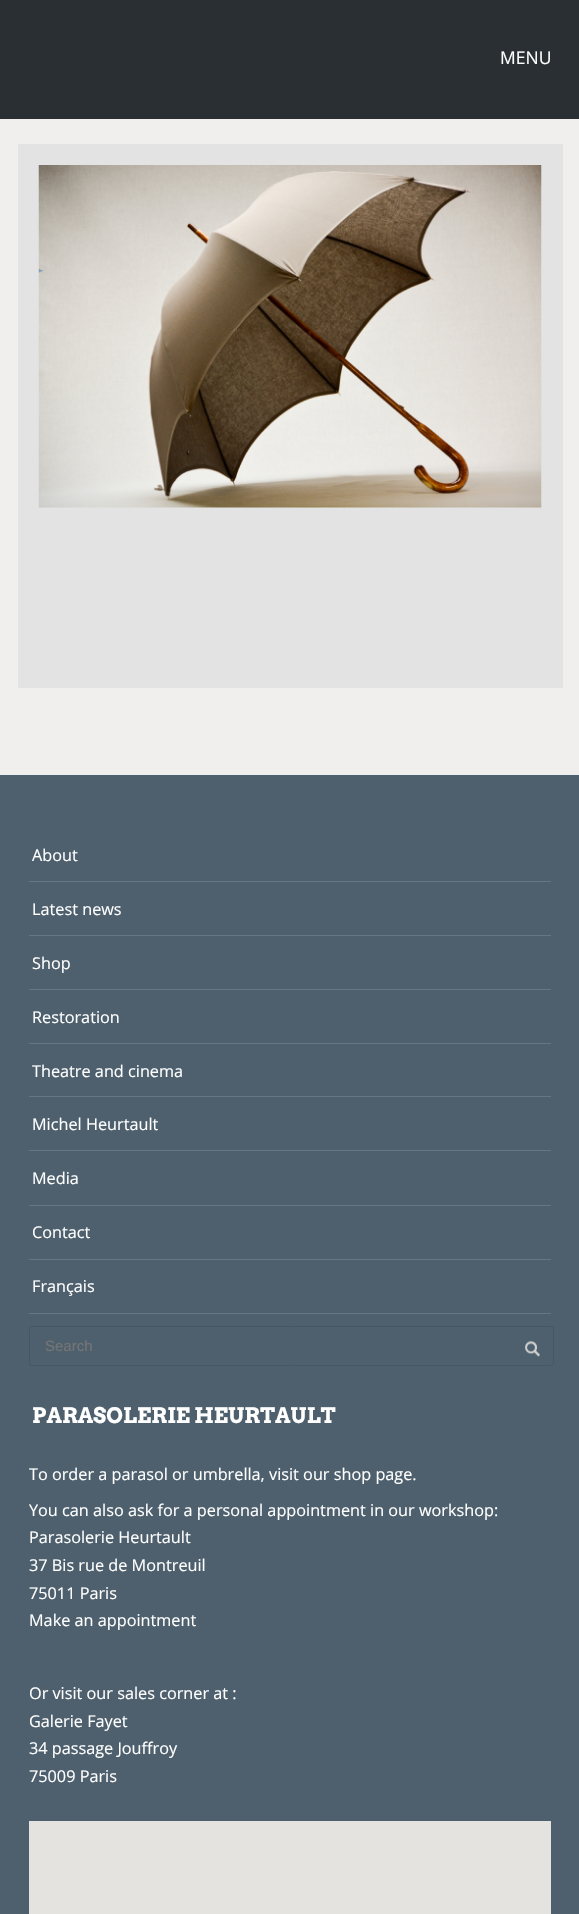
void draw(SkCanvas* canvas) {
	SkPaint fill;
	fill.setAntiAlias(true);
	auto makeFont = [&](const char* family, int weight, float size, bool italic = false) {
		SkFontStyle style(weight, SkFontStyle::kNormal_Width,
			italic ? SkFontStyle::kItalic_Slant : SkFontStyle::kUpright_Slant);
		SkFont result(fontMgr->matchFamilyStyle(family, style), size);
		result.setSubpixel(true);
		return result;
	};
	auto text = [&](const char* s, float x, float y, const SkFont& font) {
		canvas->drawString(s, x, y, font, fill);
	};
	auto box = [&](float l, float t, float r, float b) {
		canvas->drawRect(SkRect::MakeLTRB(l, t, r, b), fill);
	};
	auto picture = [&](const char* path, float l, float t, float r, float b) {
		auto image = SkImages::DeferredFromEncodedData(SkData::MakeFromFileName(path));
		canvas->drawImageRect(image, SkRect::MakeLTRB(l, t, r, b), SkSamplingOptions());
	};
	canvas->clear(0xFFF0EFED);
	fill.setColor(0xFF2A2F33);
	box(0, 0, 579, 119);
	fill.setColor(0xFFE3E3E3);
	box(18, 144, 563, 688);
	picture("image0.png", 38, 165, 542, 508);
	fill.setColor(0xFF4E606D);
	box(0, 775, 579, 1914);
	fill.setColor(0xFF677681);
	box(29, 881, 551, 882);
	box(29, 935, 551, 936);
	box(29, 989, 551, 990);
	box(29, 1043, 551, 1044);
	box(29, 1096, 551, 1097);
	box(29, 1150, 551, 1151);
	box(29, 1205, 551, 1206);
	box(29, 1259, 551, 1260);
	box(29, 1313, 551, 1314);
	fill.setStyle(SkPaint::kStroke_Style);
	fill.setStrokeWidth(1);
	fill.setColor(0xFF465662);
	canvas->drawRoundRect(SkRect::MakeLTRB(29.5f, 1326.5f, 553.5f, 1365.5f), 2, 2, fill);
	picture("image1.png", 525, 1341, 540, 1357);
	fill.setStyle(SkPaint::kFill_Style);
	fill.setColor(0xFFE5E3DF);
	box(29, 1821, 551, 1914);
	auto font1 = makeFont("Open Sans", 400, 17.5f);
	fill.setColor(0xFFFFFFFF);
	text("MENU", 500, 64, font1);
	auto font2 = makeFont("Open Sans", 400, 16.25f);
	text("About", 32, 861, font2);
	text("Latest news", 32, 915, font2);
	text("Shop", 32, 969, font2);
	text("Restoration", 32, 1023, font2);
	text("Theatre and cinema", 32, 1077, font2);
	text("Michel Heurtault", 32, 1130, font2);
	text("Media", 32, 1184, font2);
	text("Contact", 32, 1238, font2);
	text("Français", 32, 1292, font2);
	auto font3 = makeFont("Liberation Sans", 400, 15);
	fill.setColor(0xFF757575);
	text("Search", 45, 1351, font3);
	auto font4 = makeFont("Arvo", 700, 21.25f);
	fill.setColor(0xFFFFFFFF);
	text("PARASOLERIE HEURTAULT", 32, 1423, font4);
	text("To order a parasol or umbrella, visit our shop page.", 29, 1480, font2);
	text("You can also ask for a personal appointment in our workshop:", 29, 1516, font2);
	text("Parasolerie Heurtault", 29, 1543, font2);
	text("37 Bis rue de Montreuil", 29, 1571, font2);
	text("75011 Paris", 29, 1599, font2);
	text("Make an appointment", 29, 1626, font2);
	text("Or visit our sales corner at :", 29, 1699, font2);
	text("Galerie Fayet", 29, 1727, font2);
	text("34 passage Jouffroy", 29, 1754, font2);
	text("75009 Paris", 29, 1782, font2);
}
